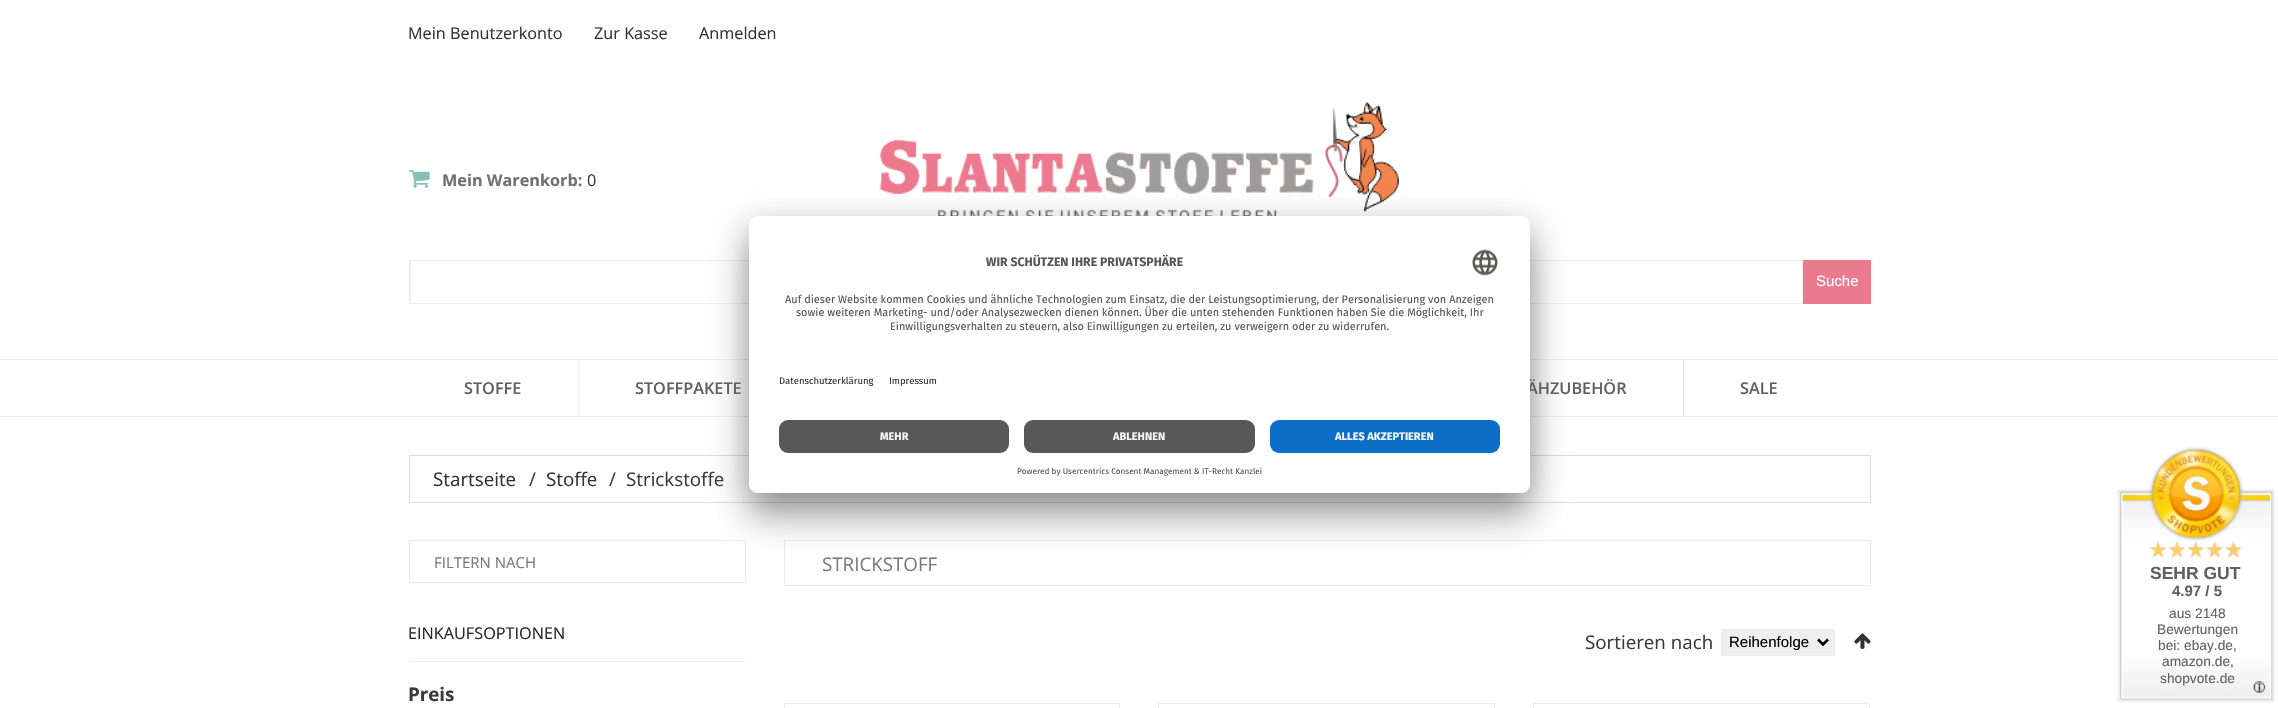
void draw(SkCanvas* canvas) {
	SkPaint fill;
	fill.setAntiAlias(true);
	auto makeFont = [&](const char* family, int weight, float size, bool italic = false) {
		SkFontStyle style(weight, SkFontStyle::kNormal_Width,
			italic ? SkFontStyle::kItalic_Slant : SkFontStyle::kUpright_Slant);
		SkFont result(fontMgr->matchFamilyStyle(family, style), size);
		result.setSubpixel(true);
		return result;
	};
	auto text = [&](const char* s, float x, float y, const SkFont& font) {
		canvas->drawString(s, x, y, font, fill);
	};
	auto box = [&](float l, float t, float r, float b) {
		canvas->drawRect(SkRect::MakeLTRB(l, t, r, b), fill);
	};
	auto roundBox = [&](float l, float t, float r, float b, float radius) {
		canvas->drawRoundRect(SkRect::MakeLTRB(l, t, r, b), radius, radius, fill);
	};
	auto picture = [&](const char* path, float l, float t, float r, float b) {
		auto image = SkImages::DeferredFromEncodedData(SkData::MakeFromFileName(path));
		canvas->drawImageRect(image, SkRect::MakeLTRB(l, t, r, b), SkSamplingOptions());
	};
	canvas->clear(0xFFFFFFFF);
	picture("image0.png", 408, 170, 430, 188);
	picture("image1.png", 879, 102, 1399, 216);
	fill.setStyle(SkPaint::kStroke_Style);
	fill.setStrokeWidth(1);
	fill.setColor(0xFFEDEDED);
	canvas->drawRect(SkRect::MakeLTRB(409.5f, 260.5f, 1802.5f, 303.5f), fill);
	fill.setStyle(SkPaint::kFill_Style);
	box(410, 261, 411, 303);
	fill.setColor(0xFFEB7A8F);
	box(1803, 260, 1871, 304);
	fill.setColor(0xFFECECEC);
	box(0, 359, 2278, 360);
	box(0, 416, 2278, 417);
	box(578, 360, 579, 416);
	box(1683, 360, 1684, 416);
	fill.setStyle(SkPaint::kStroke_Style);
	fill.setColor(0xFFDDDDDD);
	canvas->drawRect(SkRect::MakeLTRB(409.5f, 455.5f, 1870.5f, 502.5f), fill);
	fill.setColor(0xFFEAEAEA);
	canvas->drawRect(SkRect::MakeLTRB(409.5f, 540.5f, 745.5f, 582.5f), fill);
	fill.setStyle(SkPaint::kFill_Style);
	fill.setColor(0xFFECECEC);
	box(409, 661, 746, 662);
	fill.setStyle(SkPaint::kStroke_Style);
	fill.setColor(0xFFEAEAEA);
	canvas->drawRect(SkRect::MakeLTRB(784.5f, 540.5f, 1870.5f, 585.5f), fill);
	fill.setStyle(SkPaint::kFill_Style);
	fill.setColor(0xFFEFEFEF);
	canvas->drawRect(SkRect::MakeLTRB(1721.5f, 629.5f, 1834.5f, 655.5f), fill);
	fill.setStyle(SkPaint::kStroke_Style);
	fill.setColor(0xFFECECEC);
	canvas->drawRect(SkRect::MakeLTRB(1721.5f, 629.5f, 1834.5f, 655.5f), fill);
	fill.setStrokeWidth(2.5f);
	fill.setColor(0xFF000000);
	canvas->drawPath(SkPathBuilder().moveTo(1818, 639.5f).lineTo(1823, 644.5f).lineTo(1828, 639.5f).detach(), fill);
	picture("image2.png", 1854, 633, 1871, 649);
	fill.setStrokeWidth(1);
	fill.setColor(0xFFEBEBEB);
	canvas->drawRect(SkRect::MakeLTRB(784.5f, 703.5f, 1119.5f, 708.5f), fill);
	canvas->drawRect(SkRect::MakeLTRB(1158.5f, 703.5f, 1494.5f, 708.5f), fill);
	canvas->drawRect(SkRect::MakeLTRB(1533.5f, 703.5f, 1869.5f, 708.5f), fill);
	fill.setStyle(SkPaint::kFill_Style);
	fill.setColor(0x4D000000);
	fill.setMaskFilter(SkMaskFilter::MakeBlur(kNormal_SkBlurStyle, 17.5f));
	canvas->drawRoundRect(SkRect::MakeLTRB(749, 241, 1530, 518), 9, 9, fill);
	fill.setMaskFilter(nullptr);
	fill.setColor(0x38000000);
	fill.setMaskFilter(SkMaskFilter::MakeBlur(kNormal_SkBlurStyle, 16));
	canvas->drawRoundRect(SkRect::MakeLTRB(749, 223, 1530, 499), 9, 9, fill);
	fill.setMaskFilter(nullptr);
	picture("image4.png", 2117, 446, 2275, 703);
	picture("image5.png", 2150, 541, 2242, 558);
	auto font1 = makeFont("Open Sans", 400, 16.25f);
	fill.setColor(0xFF333333);
	text("Mein Benutzerkonto", 408, 39, font1);
	text("Zur Kasse", 594, 39, font1);
	text("Anmelden", 699, 39, font1);
	auto font2 = makeFont("Open Sans", 700, 16.25f);
	fill.setColor(0xFF717070);
	text("Mein Warenkorb:", 442, 186, font2);
	fill.setColor(0xFF3A3A3A);
	text("0", 587, 186, font1);
	auto font3 = makeFont("Liberation Sans", 400, 15);
	fill.setColor(0xFFFFFFFF);
	text("Suche", 1816, 286, font3);
	auto font4 = makeFont("Open Sans", 600, 16.25f);
	fill.setColor(0xFF606060);
	text("STOFFE", 464, 394, font4);
	text("STOFFPAKETE", 635, 394, font4);
	text("ÄHZUBEHÖR", 1527, 394, font4);
	text("SALE", 1740, 394, font4);
	auto font5 = makeFont("Open Sans", 400, 18.75f);
	fill.setColor(0xFF333333);
	text("Startseite", 433, 486, font5);
	fill.setColor(0xFF3A3A3A);
	text("/", 529, 486, font5);
	fill.setColor(0xFF333333);
	text("Stoffe", 546, 486, font5);
	fill.setColor(0xFF3A3A3A);
	text("/", 609, 486, font5);
	text("Strickstoffe", 626, 486, font5);
	auto font6 = makeFont("Open Sans", 400, 15);
	fill.setColor(0xFF7A7A7A);
	text("FILTERN NACH", 434, 568, font6);
	fill.setColor(0xFF2D2328);
	text("EINKAUFSOPTIONEN", 408, 639, font1);
	auto font7 = makeFont("Open Sans", 700, 18.75f);
	fill.setColor(0xFF3A3A3A);
	text("Preis", 408, 701, font7);
	fill.setColor(0xFF7A7A7A);
	text("STRICKSTOFF", 822, 571, font5);
	fill.setColor(0xFF3A3A3A);
	text("Sortieren nach", 1585, 649, font5);
	fill.setColor(0xFF000000);
	text("Reihenfolge", 1729, 647, font3);
	fill.setColor(0xFFFFFFFF);
	roundBox(749, 216, 1530, 493, 9);
	auto font8 = makeFont("Fira Sans", 700, 12.25f);
	fill.setColor(0xFF595857);
	text("WIR SCHÜTZEN IHRE PRIVATSPHÄRE", 986, 266, font8);
	picture("image3.png", 1472, 249, 1498, 276);
	auto font9 = makeFont("Fira Sans", 400, 10.95f);
	text("Auf dieser Website kommen Cookies und ähnliche Technologien zum Einsatz, die der Leistungsoptimierung, der Personalisierung von Anzeigen", 785, 303, font9);
	text("sowie weiteren Marketing- und/oder Analysezwecken dienen können. Über die unten stehenden Funktionen haben Sie die Möglichkeit, Ihr", 796, 316, font9);
	text("Einwilligungsverhalten zu steuern, also Einwilligungen zu erteilen, zu verweigern oder zu widerrufen.", 890, 330, font9);
	auto font10 = makeFont("Fira Sans", 400, 9.5f);
	fill.setColor(0xFF333333);
	text("Datenschutzerklärung", 779, 384, font10);
	text("Impressum", 889, 384, font10);
	fill.setColor(0xFFFFFFFF);
	canvas->drawPath(SkPathBuilder().moveTo(749, 410).lineTo(1530, 410).lineTo(1530, 484).cubicTo(1530, 489, 1526, 493, 1521, 493).lineTo(758, 493).cubicTo(753, 493, 749, 489, 749, 484).close().detach(), fill);
	fill.setColor(0xFF585858);
	roundBox(779, 420, 1009, 453, 9);
	auto font11 = makeFont("Fira Sans", 700, 10.95f);
	fill.setColor(0xFFF5F5F5);
	text("MEHR", 880, 440, font11);
	fill.setColor(0xFF585858);
	roundBox(1024, 420, 1255, 453, 9);
	fill.setColor(0xFFF5F5F5);
	text("ABLEHNEN", 1113, 440, font11);
	fill.setColor(0xFF0C6EC6);
	roundBox(1270, 420, 1500, 453, 9);
	fill.setColor(0xFFF5F5F5);
	text("ALLES AKZEPTIEREN", 1335, 440, font11);
	auto font12 = makeFont("Fira Sans", 400, 8.2f);
	fill.setColor(0xFF595857);
	text("Powered by Usercentrics Consent Management & IT-Recht Kanzlei", 1017, 474, font12);
	auto font13 = makeFont("Liberation Sans", 700, 17.5f);
	fill.setColor(0xFF606060);
	text("SEHR GUT", 2150, 579, font13);
	auto font14 = makeFont("Liberation Sans", 700, 15);
	text("4.97 / 5", 2172, 596, font14);
	auto font15 = makeFont("Liberation Sans", 400, 13.75f);
	text("aus 2148", 2169, 618, font15);
	text("Bewertungen", 2157, 634, font15);
	text("bei: ebay.de,", 2158, 650, font15);
	text("amazon.de,", 2162, 666, font15);
	text("shopvote.de", 2160, 683, font15);
}
